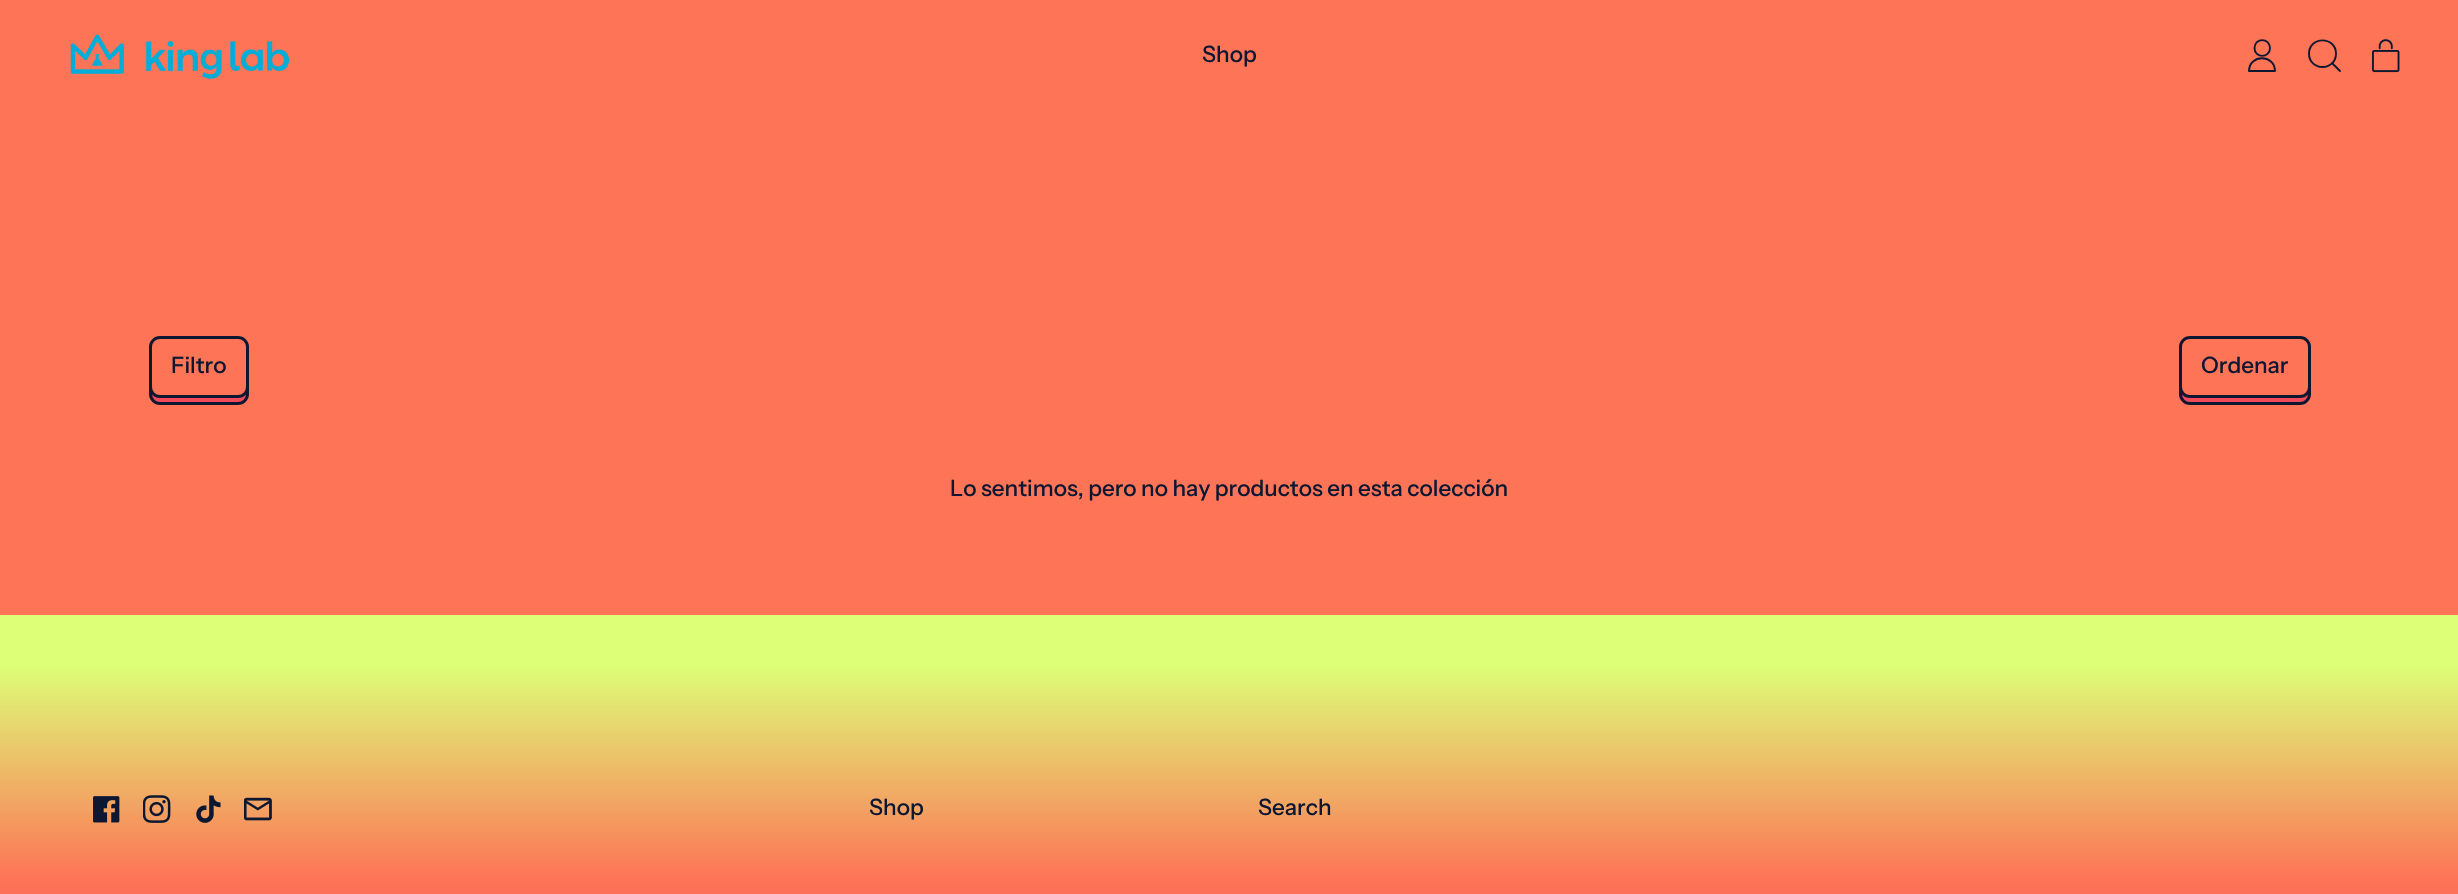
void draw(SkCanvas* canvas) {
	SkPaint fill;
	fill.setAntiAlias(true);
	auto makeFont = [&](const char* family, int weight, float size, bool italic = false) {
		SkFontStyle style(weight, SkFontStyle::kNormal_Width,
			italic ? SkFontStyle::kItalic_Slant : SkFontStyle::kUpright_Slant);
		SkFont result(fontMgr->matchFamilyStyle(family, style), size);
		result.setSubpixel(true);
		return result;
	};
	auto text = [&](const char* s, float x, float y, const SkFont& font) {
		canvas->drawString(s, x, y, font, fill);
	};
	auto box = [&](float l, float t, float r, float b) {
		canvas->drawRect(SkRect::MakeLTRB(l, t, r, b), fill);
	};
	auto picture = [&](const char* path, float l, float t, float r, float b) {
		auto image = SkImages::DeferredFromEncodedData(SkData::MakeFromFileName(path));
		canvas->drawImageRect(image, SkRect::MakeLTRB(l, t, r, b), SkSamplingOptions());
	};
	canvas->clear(0xFFFD7457);
	picture("image0.png", 70, 34, 290, 79);
	fill.setStyle(SkPaint::kStroke_Style);
	fill.setStrokeWidth(1.9f);
	fill.setStrokeCap(SkPaint::kRound_Cap);
	fill.setStrokeJoin(SkPaint::kRound_Join);
	fill.setColor(0xFF0E1732);
	canvas->drawPath(SkPathBuilder().moveTo(2254.5f, 48).cubicTo(2254.5f, 58.5f, 2270, 58.5f, 2270, 48).cubicTo(2270, 37.5f, 2254.5f, 37.5f, 2254.5f, 48).close().moveTo(2249, 71).cubicTo(2249, 54, 2275, 54, 2275, 71).close().detach(), fill);
	canvas->drawPath(SkPathBuilder().moveTo(2309, 53.5f).cubicTo(2309, 71.5f, 2336, 71.5f, 2336, 53.5f).cubicTo(2336, 36, 2309, 36, 2309, 53.5f).close().moveTo(2340, 71).lineTo(2332, 63).detach(), fill);
	picture("image1.png", 2372, 39, 2400, 73);
	canvas->save();
	canvas->clipPath(SkPathBuilder().moveTo(160, 344).lineTo(238, 344).cubicTo(244, 344, 249, 349, 249, 355).lineTo(249, 394).cubicTo(249, 400, 244, 405, 238, 405).lineTo(160, 405).cubicTo(154, 405, 149, 400, 149, 394).lineTo(149, 355).cubicTo(149, 349, 154, 344, 160, 344).close().detach(), true);
	fill.setStyle(SkPaint::kFill_Style);
	{
		const SkColor colors[] = {0xFFDDFF77, 0xFFFD7457, 0xFFEF495A};
		const float stops[] = {0.1f, 0.54f, 0.92f};
		const SkPoint ends[] = {{199, 346}, {199, 403}};
		fill.setShader(SkGradientShader::MakeLinear(ends, colors, stops, 3, SkTileMode::kClamp));
		fill.setAlpha(255);
	}
	box(149, 394, 249, 403);
	canvas->restore();
	fill.setStyle(SkPaint::kStroke_Style);
	fill.setStrokeWidth(3);
	fill.setStrokeCap(SkPaint::kButt_Cap);
	fill.setStrokeJoin(SkPaint::kMiter_Join);
	fill.setShader(nullptr);
	fill.setColor(0xFF0E1732);
	canvas->drawRoundRect(SkRect::MakeLTRB(150.5f, 345.5f, 247.5f, 403.5f), 9.5f, 9.5f, fill);
	fill.setStyle(SkPaint::kFill_Style);
	fill.setColor(0xFFFD7457);
	canvas->drawRoundRect(SkRect::MakeLTRB(150.5f, 337.5f, 247.5f, 396.5f), 9.5f, 9.5f, fill);
	fill.setStyle(SkPaint::kStroke_Style);
	fill.setColor(0xFF0E1732);
	canvas->drawRoundRect(SkRect::MakeLTRB(150.5f, 337.5f, 247.5f, 396.5f), 9.5f, 9.5f, fill);
	canvas->save();
	canvas->clipPath(SkPathBuilder().moveTo(2190, 344).lineTo(2300, 344).cubicTo(2306, 344, 2311, 349, 2311, 355).lineTo(2311, 394).cubicTo(2311, 400, 2306, 405, 2300, 405).lineTo(2190, 405).cubicTo(2184, 405, 2179, 400, 2179, 394).lineTo(2179, 355).cubicTo(2179, 349, 2184, 344, 2190, 344).close().detach(), true);
	fill.setStyle(SkPaint::kFill_Style);
	{
		const SkColor colors[] = {0xFFDDFF77, 0xFFFD7457, 0xFFEF495A};
		const float stops[] = {0.1f, 0.54f, 0.92f};
		const SkPoint ends[] = {{2245, 346}, {2245, 403}};
		fill.setShader(SkGradientShader::MakeLinear(ends, colors, stops, 3, SkTileMode::kClamp));
		fill.setAlpha(255);
	}
	box(2179, 394, 2311, 403);
	canvas->restore();
	fill.setStyle(SkPaint::kStroke_Style);
	fill.setShader(nullptr);
	fill.setColor(0xFF0E1732);
	canvas->drawRoundRect(SkRect::MakeLTRB(2180.5f, 345.5f, 2309.5f, 403.5f), 9.5f, 9.5f, fill);
	fill.setStyle(SkPaint::kFill_Style);
	fill.setColor(0xFFFD7457);
	canvas->drawRoundRect(SkRect::MakeLTRB(2180.5f, 337.5f, 2309.5f, 396.5f), 9.5f, 9.5f, fill);
	fill.setStyle(SkPaint::kStroke_Style);
	fill.setColor(0xFF0E1732);
	canvas->drawRoundRect(SkRect::MakeLTRB(2180.5f, 337.5f, 2309.5f, 396.5f), 9.5f, 9.5f, fill);
	fill.setStyle(SkPaint::kFill_Style);
	{
		const SkColor colors[] = {0xFFDDFF77, 0xFFFD7457, 0xFFEF495A};
		const float stops[] = {0.1f, 0.54f, 0.92f};
		const SkPoint ends[] = {{1229, 615}, {1229, 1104}};
		fill.setShader(SkGradientShader::MakeLinear(ends, colors, stops, 3, SkTileMode::kClamp));
		fill.setAlpha(255);
	}
	box(0, 615, 2458, 894);
	picture("image2.png", 93, 796, 120, 823);
	picture("image3.png", 143, 795, 171, 823);
	picture("image4.png", 196, 795, 221, 823);
	picture("image5.png", 244, 797, 272, 821);
	auto font1 = makeFont("Instrument Sans", 500, 22.5f);
	fill.setShader(nullptr);
	fill.setColor(0xFF0E1732);
	text("Shop", 1202, 62, font1);
	text("Filtro", 171, 373, font1);
	text("Ordenar", 2201, 373, font1);
	text("Lo sentimos, pero no hay productos en esta colección", 950, 496, font1);
	text("Shop", 869, 815, font1);
	text("Search", 1258, 815, font1);
}
